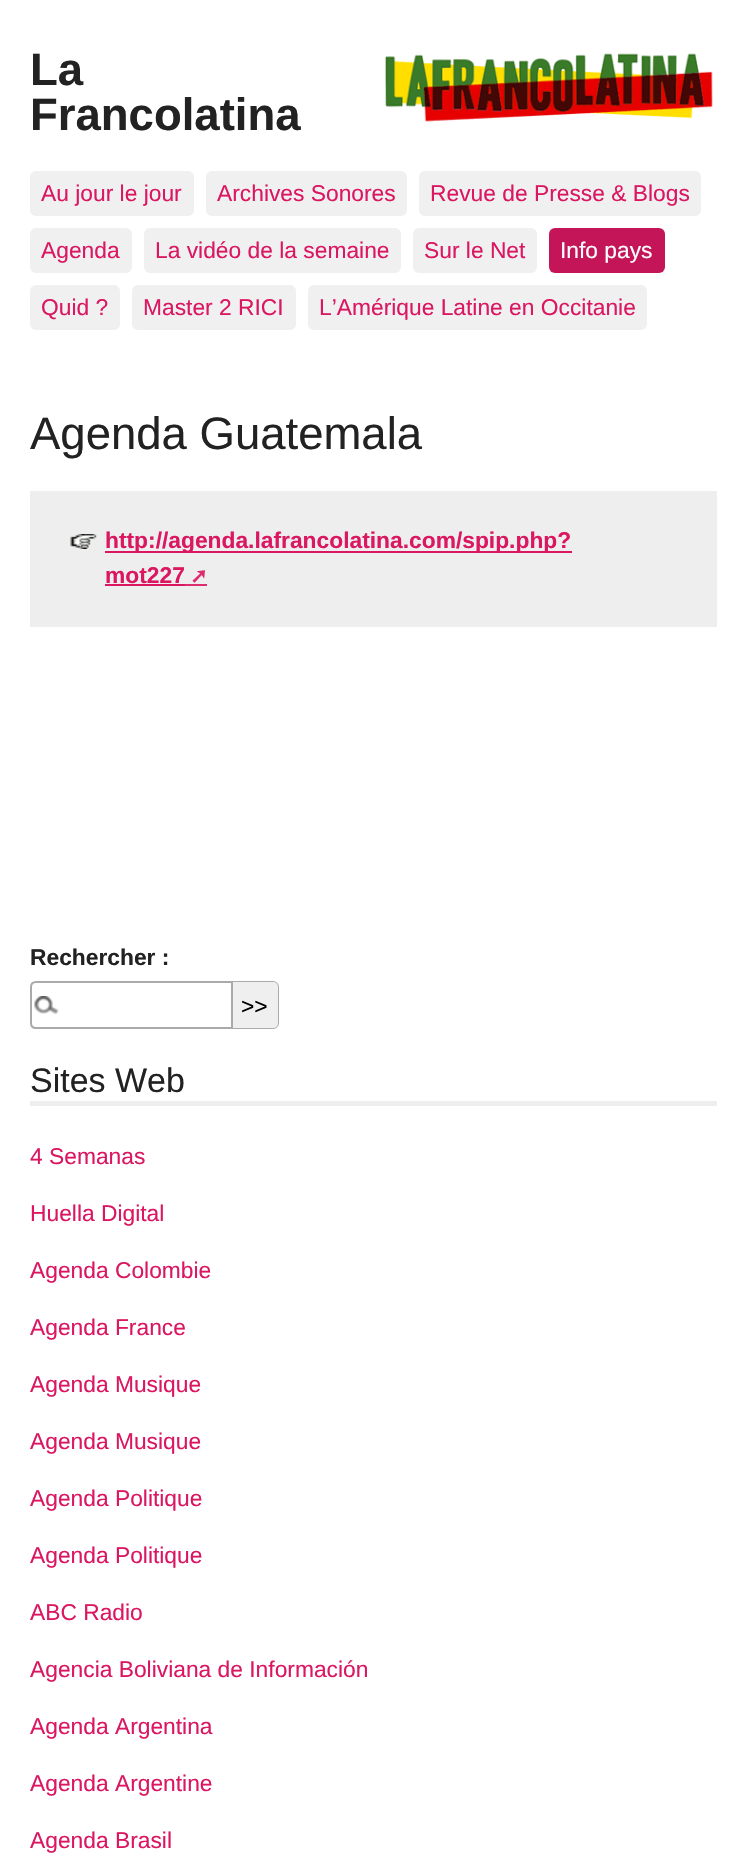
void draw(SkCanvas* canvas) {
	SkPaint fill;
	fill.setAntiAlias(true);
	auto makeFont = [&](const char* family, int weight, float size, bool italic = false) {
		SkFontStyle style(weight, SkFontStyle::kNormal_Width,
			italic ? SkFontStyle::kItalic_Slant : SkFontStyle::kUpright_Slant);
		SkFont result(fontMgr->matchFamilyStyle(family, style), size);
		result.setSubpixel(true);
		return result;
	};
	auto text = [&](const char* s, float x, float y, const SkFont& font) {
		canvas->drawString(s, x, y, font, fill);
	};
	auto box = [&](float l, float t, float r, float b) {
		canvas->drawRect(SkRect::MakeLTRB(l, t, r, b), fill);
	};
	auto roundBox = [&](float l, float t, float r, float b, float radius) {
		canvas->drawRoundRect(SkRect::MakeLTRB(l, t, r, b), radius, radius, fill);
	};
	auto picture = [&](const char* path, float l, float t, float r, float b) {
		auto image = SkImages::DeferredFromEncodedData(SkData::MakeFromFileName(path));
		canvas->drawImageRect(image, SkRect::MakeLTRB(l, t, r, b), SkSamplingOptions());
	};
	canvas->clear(0xFFFFFFFF);
	picture("image0.png", 384, 53, 713, 122);
	fill.setColor(0xFFF0F0F0);
	roundBox(30, 171, 194, 216, 6);
	roundBox(206, 171, 407, 216, 6);
	roundBox(419, 171, 701, 216, 6);
	roundBox(30, 228, 132, 273, 6);
	roundBox(144, 228, 401, 273, 6);
	roundBox(413, 228, 537, 273, 6);
	fill.setColor(0xFFC41558);
	roundBox(549, 228, 665, 273, 6);
	fill.setColor(0xFFF0F0F0);
	roundBox(30, 285, 120, 330, 6);
	roundBox(132, 285, 296, 330, 6);
	roundBox(308, 285, 647, 330, 6);
	fill.setColor(0xFFEEEEEE);
	box(30, 491, 717, 627);
	picture("image1.png", 70, 534, 97, 549);
	fill.setColor(0xFFDB1762);
	box(105, 551, 572, 553);
	box(105, 584, 185, 586);
	fill.setColor(0xFFDD2D70);
	box(185, 584, 207, 586);
	picture("image2.png", 34, 996, 59, 1014);
	fill.setStyle(SkPaint::kStroke_Style);
	fill.setStrokeWidth(2);
	fill.setColor(0xFFAAAAAA);
	canvas->drawPath(SkPathBuilder().moveTo(36, 982).lineTo(232, 982).lineTo(232, 1028).lineTo(36, 1028).cubicTo(33, 1028, 31, 1026, 31, 1023).lineTo(31, 987).cubicTo(31, 984, 33, 982, 36, 982).close().detach(), fill);
	fill.setStyle(SkPaint::kFill_Style);
	fill.setColor(0xFFEFEFEF);
	canvas->drawPath(SkPathBuilder().moveTo(233, 981).lineTo(273, 981).cubicTo(276.5f, 981, 279, 983.5f, 279, 987).lineTo(279, 1023).cubicTo(279, 1026.5f, 276.5f, 1029, 273, 1029).lineTo(233, 1029).close().detach(), fill);
	fill.setColor(0xFFAAAAAA);
	canvas->drawPath(SkPathBuilder(SkPathFillType::kEvenOdd).moveTo(232, 981).lineTo(273, 981).cubicTo(276, 981, 279, 984, 279, 987).lineTo(279, 1023).cubicTo(279, 1026, 276, 1029, 273, 1029).lineTo(232, 1029).close().moveTo(232, 982).lineTo(273, 982).cubicTo(276, 982, 278, 984, 278, 987).lineTo(278, 1023).cubicTo(278, 1026, 276, 1028, 273, 1028).lineTo(232, 1028).close().detach(), fill);
	fill.setColor(0xFFEEEEEE);
	box(30, 1101, 717, 1106);
	auto font1 = makeFont("Liberation Sans", 700, 45.5f);
	fill.setColor(0xFF222222);
	text("La", 30, 85, font1);
	text("Francolatina", 30, 130, font1);
	auto font2 = makeFont("Liberation Sans", 400, 22.8f);
	fill.setColor(0xFFDB1762);
	text("Au jour le jour", 41, 201, font2);
	text("Archives Sonores", 217, 201, font2);
	text("Revue de Presse & Blogs", 430, 201, font2);
	text("Agenda", 41, 258, font2);
	text("La vidéo de la semaine", 155, 258, font2);
	text("Sur le Net", 424, 258, font2);
	fill.setColor(0xFFFFFFFF);
	text("Info pays", 560, 258, font2);
	fill.setColor(0xFFDB1762);
	text("Quid ?", 41, 315, font2);
	text("Master 2 RICI", 143, 315, font2);
	text("L’Amérique Latine en Occitanie", 319, 315, font2);
	auto font3 = makeFont("Liberation Sans", 400, 45.5f);
	fill.setColor(0xFF222222);
	text("Agenda Guatemala", 30, 449, font3);
	auto font4 = makeFont("Liberation Sans", 700, 22.8f);
	fill.setColor(0xFFDB1762);
	text("http://agenda.lafrancolatina.com/spip.php?", 105, 548, font4);
	text("mot227", 105, 583, font4);
	auto font5 = makeFont("DejaVu Sans", 700, 21);
	fill.setColor(0xFFDD2D70);
	text("➚", 190, 583, font5);
	fill.setColor(0xFF222222);
	text("Rechercher :", 30, 965, font4);
	fill.setColor(0xFF000000);
	text(">>", 241, 1014, font2);
	auto font6 = makeFont("Liberation Sans", 400, 34);
	fill.setColor(0xFF222222);
	text("Sites Web", 30, 1092, font6);
	fill.setColor(0xFFDB1762);
	text("4 Semanas", 30, 1164, font2);
	text("Huella Digital", 30, 1221, font2);
	text("Agenda Colombie", 30, 1278, font2);
	text("Agenda France", 30, 1335, font2);
	text("Agenda Musique", 30, 1392, font2);
	text("Agenda Musique", 30, 1449, font2);
	text("Agenda Politique", 30, 1506, font2);
	text("Agenda Politique", 30, 1563, font2);
	text("ABC Radio", 30, 1620, font2);
	text("Agencia Boliviana de Información", 30, 1677, font2);
	text("Agenda Argentina", 30, 1734, font2);
	text("Agenda Argentine", 30, 1791, font2);
	text("Agenda Brasil", 30, 1848, font2);
}
